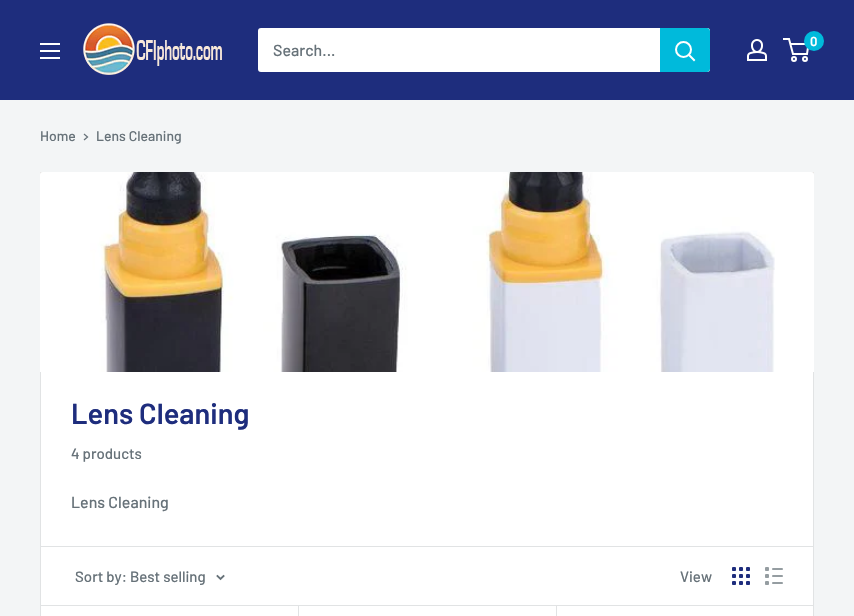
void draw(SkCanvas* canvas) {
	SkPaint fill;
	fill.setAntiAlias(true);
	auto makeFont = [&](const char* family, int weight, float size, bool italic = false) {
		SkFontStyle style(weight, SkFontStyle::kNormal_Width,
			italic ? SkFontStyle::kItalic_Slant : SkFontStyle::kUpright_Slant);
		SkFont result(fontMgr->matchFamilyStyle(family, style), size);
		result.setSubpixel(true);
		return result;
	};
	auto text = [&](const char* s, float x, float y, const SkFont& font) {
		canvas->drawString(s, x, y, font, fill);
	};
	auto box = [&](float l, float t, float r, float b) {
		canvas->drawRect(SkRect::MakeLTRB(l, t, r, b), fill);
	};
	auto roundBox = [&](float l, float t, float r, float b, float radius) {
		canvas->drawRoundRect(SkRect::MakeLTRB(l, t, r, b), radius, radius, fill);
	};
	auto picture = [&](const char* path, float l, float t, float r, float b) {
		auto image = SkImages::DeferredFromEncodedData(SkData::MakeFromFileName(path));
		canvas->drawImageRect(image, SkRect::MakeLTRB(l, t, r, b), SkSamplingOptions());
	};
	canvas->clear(0xFFF3F5F6);
	fill.setColor(0xFF1E2D7D);
	box(0, 0, 854, 100);
	picture("image0.png", 83, 23, 222, 75);
	picture("image1.png", 747, 39, 767, 61);
	fill.setStyle(SkPaint::kStroke_Style);
	fill.setStrokeWidth(2);
	fill.setColor(0xFFFFFFFF);
	canvas->drawCircle(794, 59, 2, fill);
	canvas->drawCircle(805, 59, 2, fill);
	canvas->drawPath(SkPathBuilder().moveTo(790.5f, 44).lineTo(808.5f, 44).lineTo(807, 54).lineTo(793, 54).lineTo(789, 39).lineTo(783, 39).detach(), fill);
	fill.setStyle(SkPaint::kFill_Style);
	fill.setColor(0xFF00BADB);
	canvas->drawCircle(814, 41, 10, fill);
	picture("image2.png", 40, 43, 60, 59);
	fill.setColor(0xFFFFFFFF);
	roundBox(258, 28, 710, 72, 3);
	fill.setColor(0xFF00BADB);
	canvas->drawPath(SkPathBuilder().moveTo(660, 28).lineTo(707, 28).cubicTo(708.5f, 28, 710, 29.5f, 710, 31).lineTo(710, 69).cubicTo(710, 70.5f, 708.5f, 72, 707, 72).lineTo(660, 72).close().detach(), fill);
	fill.setStyle(SkPaint::kStroke_Style);
	fill.setStrokeCap(SkPaint::kSquare_Cap);
	fill.setColor(0xFFFFFFFF);
	canvas->drawPath(SkPathBuilder().moveTo(694, 60).lineTo(689, 55).detach(), fill);
	fill.setStrokeCap(SkPaint::kButt_Cap);
	canvas->drawCircle(683.5f, 49.5f, 7.5f, fill);
	fill.setStrokeWidth(1.3f);
	fill.setStrokeCap(SkPaint::kSquare_Cap);
	fill.setColor(0xFF677279);
	canvas->drawPath(SkPathBuilder().moveTo(84.5f, 134.5f).lineTo(87.5f, 137).lineTo(84.5f, 139.5f).detach(), fill);
	fill.setStyle(SkPaint::kFill_Style);
	fill.setColor(0xFFE7E5E3);
	box(40, 172, 814, 175);
	fill.setColor(0xFFFFFFFF);
	canvas->drawRect(SkRect::MakeLTRB(40.5f, 371.5f, 813.5f, 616.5f), fill);
	fill.setStyle(SkPaint::kStroke_Style);
	fill.setStrokeWidth(1);
	fill.setStrokeCap(SkPaint::kButt_Cap);
	fill.setColor(0xFFE1E3E4);
	canvas->drawRect(SkRect::MakeLTRB(40.5f, 371.5f, 813.5f, 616.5f), fill);
	picture("image3.png", 40, 172, 814, 372);
	fill.setStyle(SkPaint::kFill_Style);
	box(41, 546, 813, 547);
	box(298, 605, 299, 616);
	box(556, 605, 557, 616);
	box(41, 605, 813, 606);
	fill.setStyle(SkPaint::kStroke_Style);
	fill.setStrokeWidth(1.9f);
	fill.setStrokeCap(SkPaint::kSquare_Cap);
	fill.setColor(0xFF677279);
	canvas->drawPath(SkPathBuilder().moveTo(223.5f, 576).lineTo(220.5f, 579).lineTo(217.5f, 576).detach(), fill);
	picture("image4.png", 732, 567, 750, 585);
	picture("image5.png", 765, 567, 783, 585);
	auto font1 = makeFont("Barlow", 600, 13);
	fill.setStyle(SkPaint::kFill_Style);
	fill.setColor(0xFFFFFFFF);
	text("0", 810, 46, font1);
	auto font2 = makeFont("Barlow", 500, 16);
	fill.setColor(0xFF677279);
	text("Search...", 273, 56, font2);
	auto font3 = makeFont("Barlow", 500, 14);
	text("Home", 40, 141, font3);
	text("Lens Cleaning", 96, 141, font3);
	auto font4 = makeFont("Barlow", 600, 29);
	fill.setColor(0xFF1E2D7D);
	text("Lens Cleaning", 71, 424, font4);
	auto font5 = makeFont("Barlow", 500, 15);
	fill.setColor(0xFF677279);
	text("4 products", 71, 459, font5);
	text("Lens Cleaning", 71, 508, font2);
	text("Sort by: Best selling", 75, 582, font5);
	text("View", 680, 582, font5);
}
